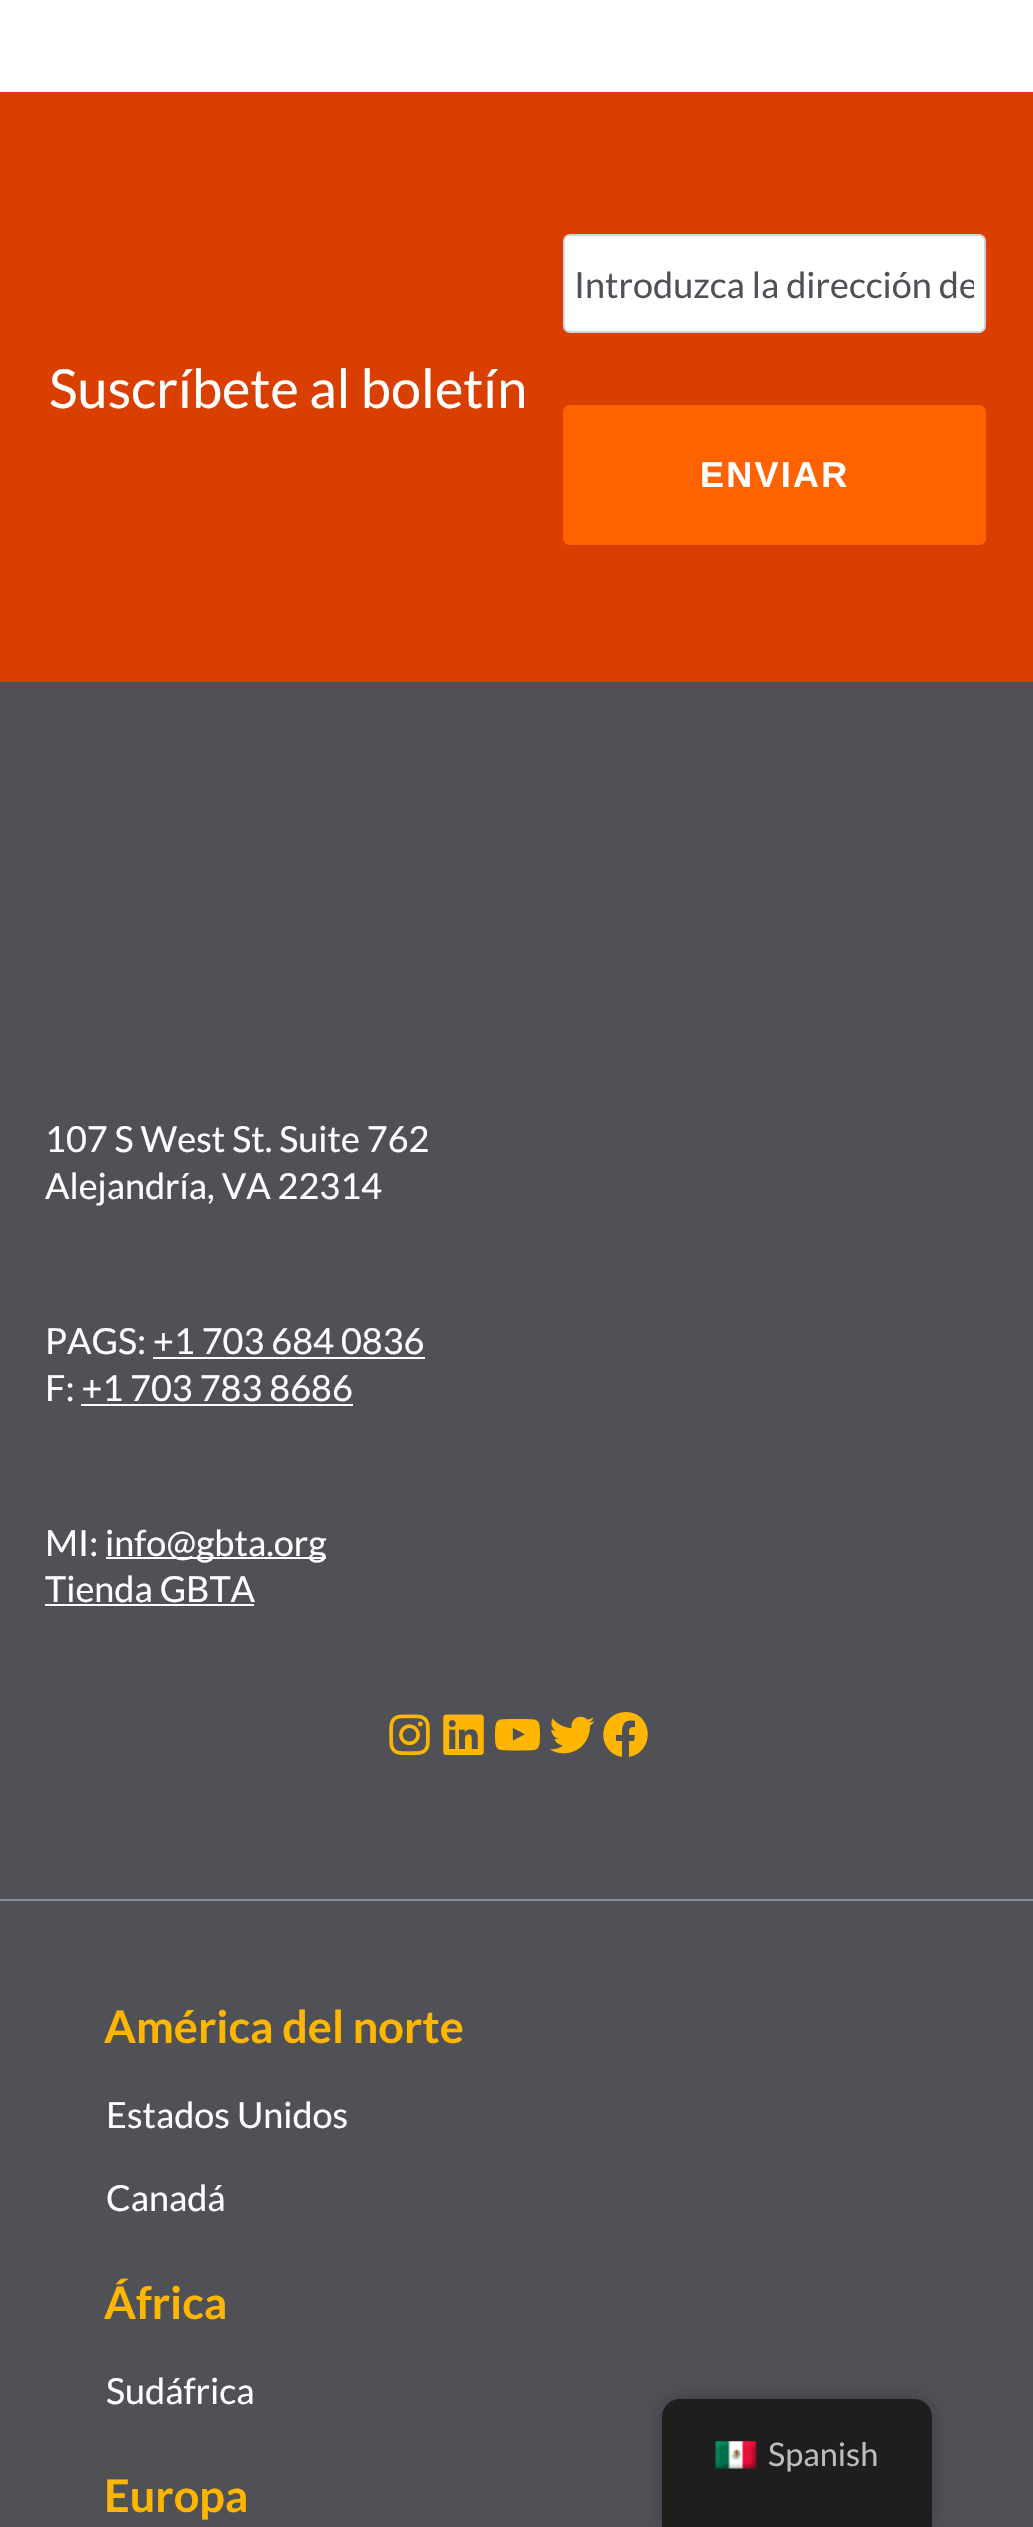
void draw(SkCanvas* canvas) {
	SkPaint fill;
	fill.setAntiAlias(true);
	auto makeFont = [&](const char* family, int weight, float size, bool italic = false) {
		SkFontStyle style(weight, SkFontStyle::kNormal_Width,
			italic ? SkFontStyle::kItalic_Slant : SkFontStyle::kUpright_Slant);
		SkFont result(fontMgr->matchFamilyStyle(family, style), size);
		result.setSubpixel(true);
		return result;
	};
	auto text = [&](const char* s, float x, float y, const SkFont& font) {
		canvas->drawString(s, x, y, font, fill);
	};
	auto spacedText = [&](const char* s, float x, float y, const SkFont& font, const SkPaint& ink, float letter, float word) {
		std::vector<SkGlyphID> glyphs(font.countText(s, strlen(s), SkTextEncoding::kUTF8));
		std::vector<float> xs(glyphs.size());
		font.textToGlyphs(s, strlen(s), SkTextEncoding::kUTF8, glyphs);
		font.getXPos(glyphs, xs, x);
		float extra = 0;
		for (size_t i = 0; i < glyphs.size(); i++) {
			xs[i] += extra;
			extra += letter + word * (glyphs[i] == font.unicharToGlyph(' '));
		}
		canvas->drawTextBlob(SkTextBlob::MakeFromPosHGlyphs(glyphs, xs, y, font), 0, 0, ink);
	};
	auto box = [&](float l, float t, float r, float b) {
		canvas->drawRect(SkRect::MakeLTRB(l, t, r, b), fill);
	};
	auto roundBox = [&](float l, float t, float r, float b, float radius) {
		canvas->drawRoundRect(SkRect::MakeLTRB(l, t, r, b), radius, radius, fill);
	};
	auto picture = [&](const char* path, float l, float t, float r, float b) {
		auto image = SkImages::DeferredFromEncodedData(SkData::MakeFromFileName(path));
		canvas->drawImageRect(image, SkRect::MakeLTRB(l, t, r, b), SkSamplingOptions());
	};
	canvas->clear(0xFFFFFFFF);
	fill.setColor(0xFFD93F00);
	box(0, 92, 1033, 682);
	fill.setColor(0xFFFFFFFF);
	canvas->drawRoundRect(SkRect::MakeLTRB(564, 235, 985, 332), 6, 6, fill);
	fill.setStyle(SkPaint::kStroke_Style);
	fill.setStrokeWidth(2);
	fill.setColor(0xFFCBD5E0);
	canvas->drawRoundRect(SkRect::MakeLTRB(564, 235, 985, 332), 6, 6, fill);
	fill.setStyle(SkPaint::kFill_Style);
	fill.setColor(0xFFFF6200);
	roundBox(563, 405, 986, 545, 7);
	fill.setColor(0xFF4F5157);
	box(0, 682, 1033, 1899);
	fill.setColor(0xFF898F9A);
	box(0, 1899, 1033, 1901);
	fill.setColor(0xFFFFFFFF);
	box(153, 1357, 425, 1359);
	box(81, 1404, 353, 1406);
	box(106, 1557, 326, 1559);
	box(45, 1604, 254, 1606);
	picture("image0.png", 389, 1714, 430, 1755);
	picture("image1.png", 443, 1714, 484, 1755);
	picture("image2.png", 495, 1718, 540, 1751);
	picture("image3.png", 549, 1716, 595, 1754);
	fill.setColor(0xFFFFB600);
	canvas->drawPath(SkPathBuilder().moveTo(626, 1712).cubicTo(598, 1712, 595, 1752, 622, 1757).lineTo(622, 1741).lineTo(616, 1741).lineTo(616, 1735).lineTo(622, 1735).cubicTo(622, 1724, 624, 1719, 635, 1721).lineTo(635, 1727).cubicTo(629, 1727, 629, 1728, 629, 1735).lineTo(635, 1735).lineTo(634, 1741).lineTo(629, 1741).lineTo(629, 1757).cubicTo(656, 1752, 653, 1712, 626, 1712).close().detach(), fill);
	fill.setColor(0xFF4F5157);
	box(0, 1901, 1033, 2527);
	fill.setColor(0x40000000);
	fill.setMaskFilter(SkMaskFilter::MakeBlur(kNormal_SkBlurStyle, 9));
	canvas->drawRoundRect(SkRect::MakeLTRB(662, 2399, 932, 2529), 18, 18, fill);
	fill.setMaskFilter(nullptr);
	fill.setColor(0xFF1E1E1E);
	canvas->drawPath(SkPathBuilder().moveTo(680, 2399).lineTo(914, 2399).cubicTo(924, 2399, 932, 2407, 932, 2417).lineTo(932, 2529).lineTo(662, 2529).lineTo(662, 2417).cubicTo(662, 2407, 670, 2399, 680, 2399).close().detach(), fill);
	picture("image4.png", 715, 2441, 757, 2469);
	auto font1 = makeFont("Lato", 400, 54);
	fill.setColor(0xFFFFFFFF);
	text("Suscríbete al boletín", 49, 408, font1);
	canvas->save();
	canvas->clipRect(SkRect::MakeLTRB(574, 261, 974, 304));
	auto font2 = makeFont("Lato", 400, 36);
	fill.setColor(0xFF4F5157);
	text("Introduzca la dirección de", 574, 298, font2);
	canvas->restore();
	auto font3 = makeFont("Liberation Sans", 700, 36);
	fill.setColor(0xFFFFFFFF);
	spacedText("ENVIAR", 700, 487, font3, fill, 2.25f, 0);
	text("107 S West St. Suite 762", 45, 1152, font2);
	text("Alejandría, VA 22314", 45, 1199, font2);
	text("PAGS: +1 703 684 0836", 45, 1354, font2);
	text("F: +1 703 783 8686", 45, 1401, font2);
	text("MI:", 45, 1556, font2);
	text("info@gbta.org", 105, 1556, font2);
	text("Tienda GBTA", 45, 1602, font2);
	auto font4 = makeFont("Lato", 700, 45);
	fill.setColor(0xFFFFB600);
	text("América del norte", 104, 2043, font4);
	fill.setColor(0xFFFFFFFF);
	text("Estados Unidos", 106, 2128, font2);
	text("Canadá", 106, 2211, font2);
	fill.setColor(0xFFFFB600);
	text("África", 104, 2319, font4);
	fill.setColor(0xFFFFFFFF);
	text("Sudáfrica", 106, 2404, font2);
	fill.setColor(0xFFFFB600);
	text("Europa", 104, 2512, font4);
	auto font5 = makeFont("Lato", 400, 32.5f);
	fill.setColor(0xFFBDBDBD);
	text("Spanish", 768, 2466, font5);
}
